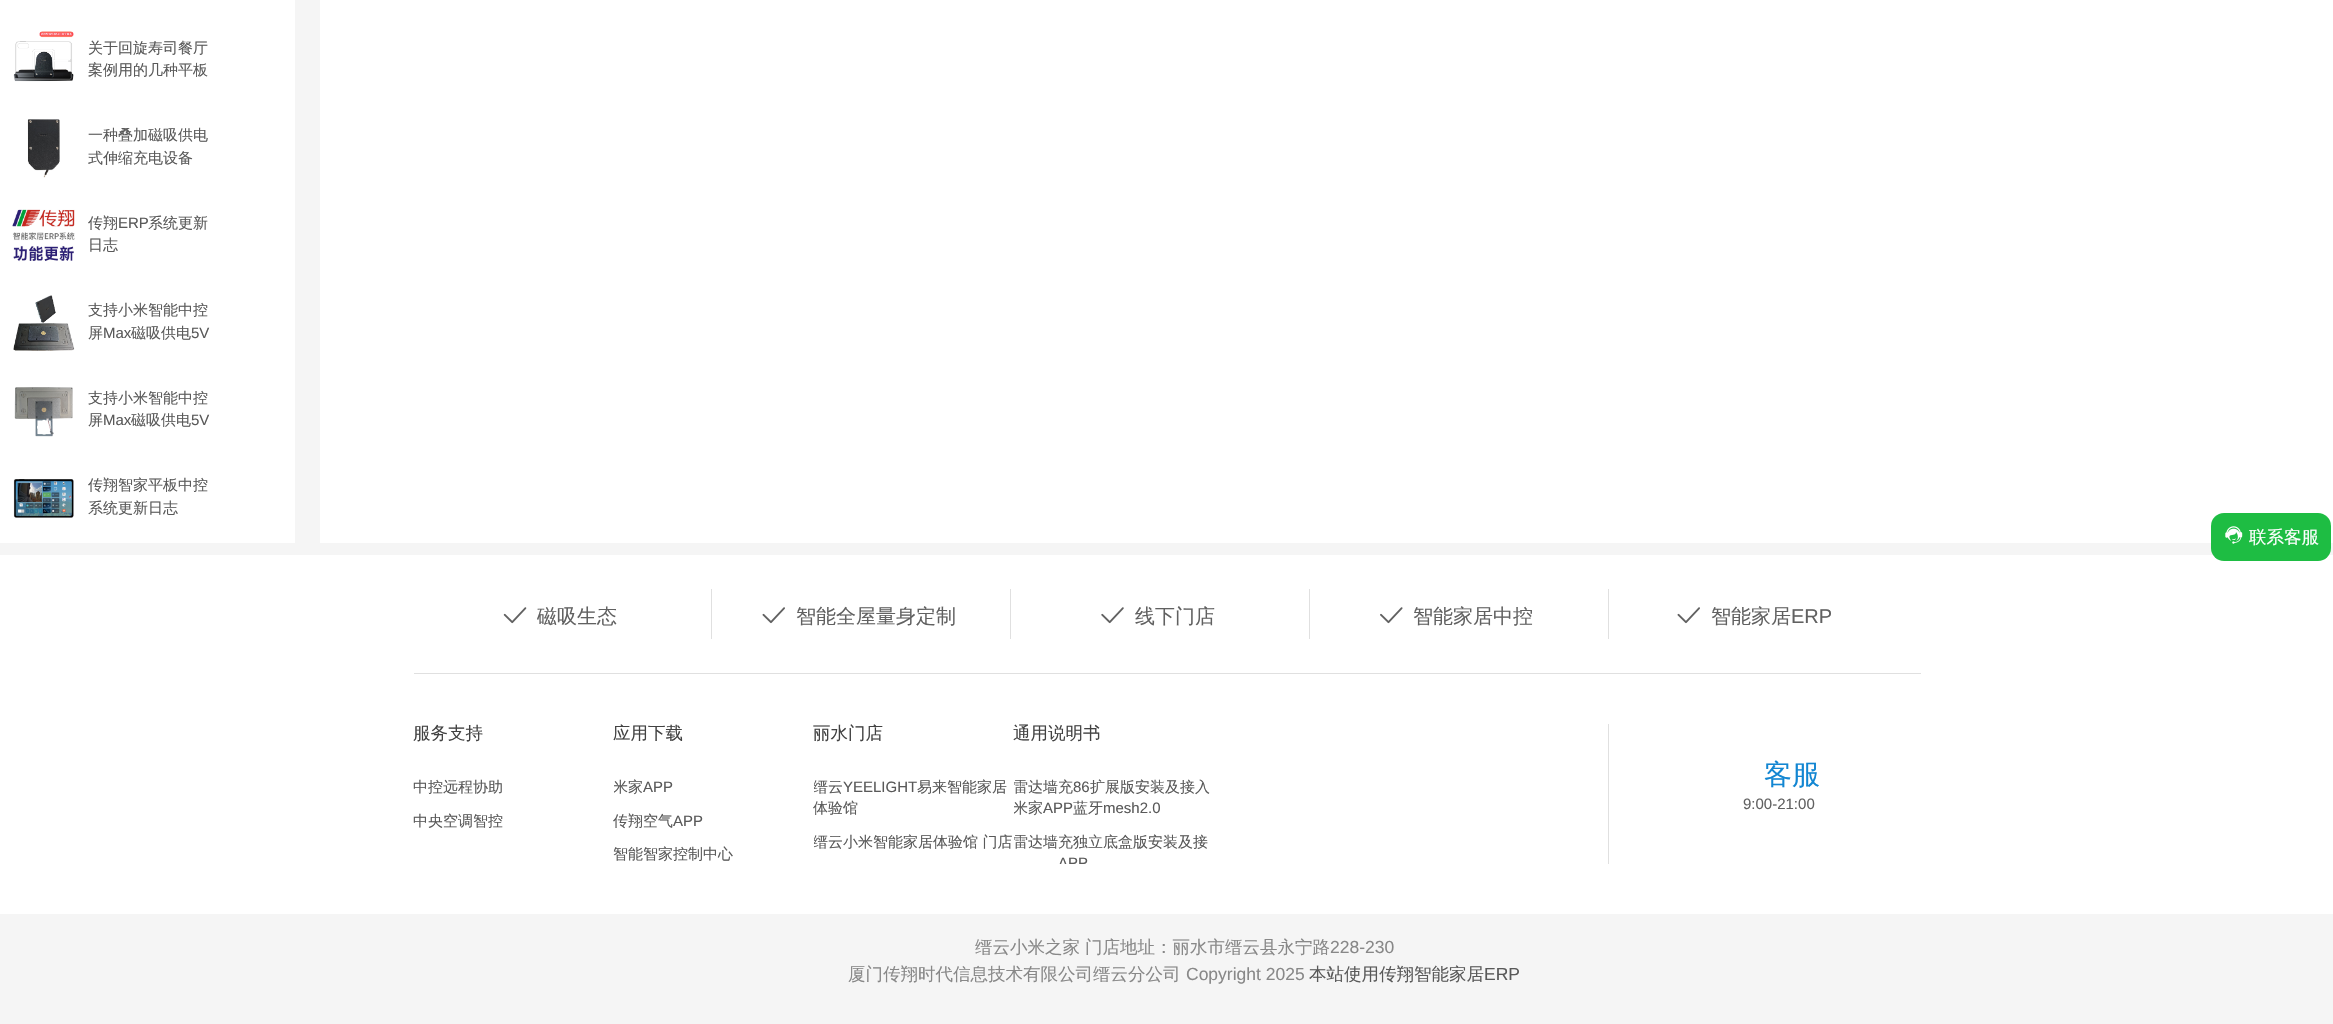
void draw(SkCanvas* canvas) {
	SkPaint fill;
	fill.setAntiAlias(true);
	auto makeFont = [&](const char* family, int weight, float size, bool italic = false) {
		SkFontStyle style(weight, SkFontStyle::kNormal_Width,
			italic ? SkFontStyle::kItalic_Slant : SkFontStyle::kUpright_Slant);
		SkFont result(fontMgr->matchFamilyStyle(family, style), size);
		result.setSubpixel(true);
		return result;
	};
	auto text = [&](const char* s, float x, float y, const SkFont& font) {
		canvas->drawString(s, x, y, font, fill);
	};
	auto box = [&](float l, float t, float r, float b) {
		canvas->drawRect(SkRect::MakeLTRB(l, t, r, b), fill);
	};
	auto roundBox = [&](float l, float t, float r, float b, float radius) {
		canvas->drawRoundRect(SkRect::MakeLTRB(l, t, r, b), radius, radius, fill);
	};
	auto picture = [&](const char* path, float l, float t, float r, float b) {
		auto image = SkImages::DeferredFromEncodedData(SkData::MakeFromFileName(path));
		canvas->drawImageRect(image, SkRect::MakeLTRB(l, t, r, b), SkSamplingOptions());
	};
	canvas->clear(0xFFFFFFFF);
	fill.setColor(0xFFF5F5F5);
	box(0, 0, 2333, 555);
	fill.setColor(0xFFFFFFFF);
	box(0, 0, 295, 543);
	picture("image0.png", 13, 31, 74, 82);
	picture("image1.png", 27, 119, 60, 178);
	picture("image2.png", 12, 209, 75, 262);
	picture("image3.png", 13, 295, 75, 351);
	picture("image4.png", 14, 387, 73, 437);
	picture("image5.png", 13, 479, 74, 518);
	box(320, 0, 2333, 543);
	fill.setColor(0xFF1EBD43);
	roundBox(2211, 513, 2331, 561, 13);
	picture("image6.png", 2225, 526, 2243, 544);
	picture("image7.png", 503, 607, 527, 624);
	fill.setColor(0xFFE0E0E0);
	box(711, 589, 712, 639);
	picture("image8.png", 762, 607, 785, 624);
	box(1010, 589, 1011, 639);
	picture("image9.png", 1101, 607, 1124, 624);
	box(1309, 589, 1310, 639);
	picture("image10.png", 1380, 607, 1403, 624);
	box(1608, 589, 1609, 639);
	picture("image8.png", 1677, 607, 1700, 624);
	box(414, 673, 1921, 674);
	box(1608, 724, 1609, 864);
	fill.setColor(0xFFF5F5F5);
	box(0, 914, 2333, 1024);
	auto font1 = makeFont("WenQuanYi Zen Hei", 500, 15);
	fill.setColor(0xFF595959);
	text("关于回旋寿司餐厅", 88, 53, font1);
	text("案例用的几种平板", 88, 75, font1);
	text("一种叠加磁吸供电", 88, 140, font1);
	text("式伸缩充电设备", 88, 163, font1);
	text("传翔", 88, 228, font1);
	auto font2 = makeFont("Liberation Sans", 400, 15);
	text("ERP", 118, 228, font2);
	text("系统更新", 148, 228, font1);
	text("日志", 88, 250, font1);
	text("支持小米智能中控", 88, 315, font1);
	text("屏", 88, 338, font1);
	text("Max", 103, 338, font2);
	text("磁吸供电", 131, 338, font1);
	text("5V", 191, 338, font2);
	text("支持小米智能中控", 88, 403, font1);
	text("屏", 88, 425, font1);
	text("Max", 103, 425, font2);
	text("磁吸供电", 131, 425, font1);
	text("5V", 191, 425, font2);
	text("传翔智家平板中控", 88, 490, font1);
	text("系统更新日志", 88, 513, font1);
	auto font3 = makeFont("WenQuanYi Zen Hei", 500, 17.5f);
	fill.setColor(0xFFFFFFFF);
	text("联系客服", 2249, 543, font3);
	auto font4 = makeFont("WenQuanYi Zen Hei", 500, 20);
	fill.setColor(0xFF616161);
	text("磁吸生态", 537, 623, font4);
	text("智能全屋量身定制", 796, 623, font4);
	text("线下门店", 1135, 623, font4);
	text("智能家居中控", 1413, 623, font4);
	text("智能家居", 1711, 623, font4);
	auto font5 = makeFont("Liberation Sans", 400, 20);
	text("ERP", 1791, 623, font5);
	fill.setColor(0xFF424242);
	text("服务支持", 413, 739, font3);
	fill.setColor(0xFF595959);
	text("中控远程协助", 413, 792, font1);
	text("中央空调智控", 413, 826, font1);
	fill.setColor(0xFF424242);
	text("应用下载", 613, 739, font3);
	canvas->save();
	canvas->clipRect(SkRect::MakeLTRB(614, 724, 814, 864));
	fill.setColor(0xFF595959);
	text("米家", 613, 792, font1);
	canvas->restore();
	text("APP", 643, 792, font2);
	text("传翔空气", 613, 826, font1);
	text("APP", 673, 826, font2);
	text("智能智家控制中心", 613, 859, font1);
	fill.setColor(0xFF424242);
	text("丽水门店", 813, 739, font3);
	canvas->save();
	canvas->clipRect(SkRect::MakeLTRB(814, 724, 1014, 864));
	fill.setColor(0xFF595959);
	text("缙云", 813, 792, font1);
	canvas->restore();
	text("YEELIGHT", 843, 792, font2);
	text("易来智能家居", 917, 792, font1);
	text("体验馆", 813, 813, font1);
	canvas->save();
	canvas->clipRect(SkRect::MakeLTRB(814, 724, 1014, 864));
	text("缙云小米智能家居体验馆 门店", 813, 847, font1);
	canvas->restore();
	fill.setColor(0xFF424242);
	text("通用说明书", 1013, 739, font3);
	canvas->save();
	canvas->clipRect(SkRect::MakeLTRB(1014, 724, 1214, 864));
	fill.setColor(0xFF595959);
	text("雷达墙充", 1013, 792, font1);
	canvas->restore();
	text("86", 1073, 792, font2);
	text("扩展版安装及接入", 1090, 792, font1);
	canvas->save();
	canvas->clipRect(SkRect::MakeLTRB(1014, 724, 1214, 864));
	text("米家", 1013, 813, font1);
	canvas->restore();
	text("APP", 1043, 813, font2);
	text("蓝牙", 1073, 813, font1);
	text("mesh2.0", 1103, 813, font2);
	canvas->save();
	canvas->clipRect(SkRect::MakeLTRB(1014, 724, 1214, 864));
	text("雷达墙充独立底盒版安装及接", 1013, 847, font1);
	text("APP", 1058, 868, font2);
	canvas->restore();
	auto font6 = makeFont("WenQuanYi Zen Hei", 500, 28);
	fill.setColor(0xFF1286D2);
	text("客服", 1764, 784, font6);
	fill.setColor(0xFF616161);
	text("9:00-21:00", 1743, 809, font2);
	fill.setColor(0xFF888888);
	text("缙云小米之家", 975, 953, font3);
	text("门店地址：丽水市缙云县永宁路", 1085, 953, font3);
	auto font7 = makeFont("Liberation Sans", 400, 17.5f);
	text("228-230", 1330, 953, font7);
	text("厦门传翔时代信息技术有限公司缙云分公司", 848, 980, font3);
	text("Copyright 2025", 1186, 980, font7);
	fill.setColor(0xFF595959);
	text("本站使用传翔智能家居", 1309, 980, font3);
	text("ERP", 1484, 980, font7);
}
